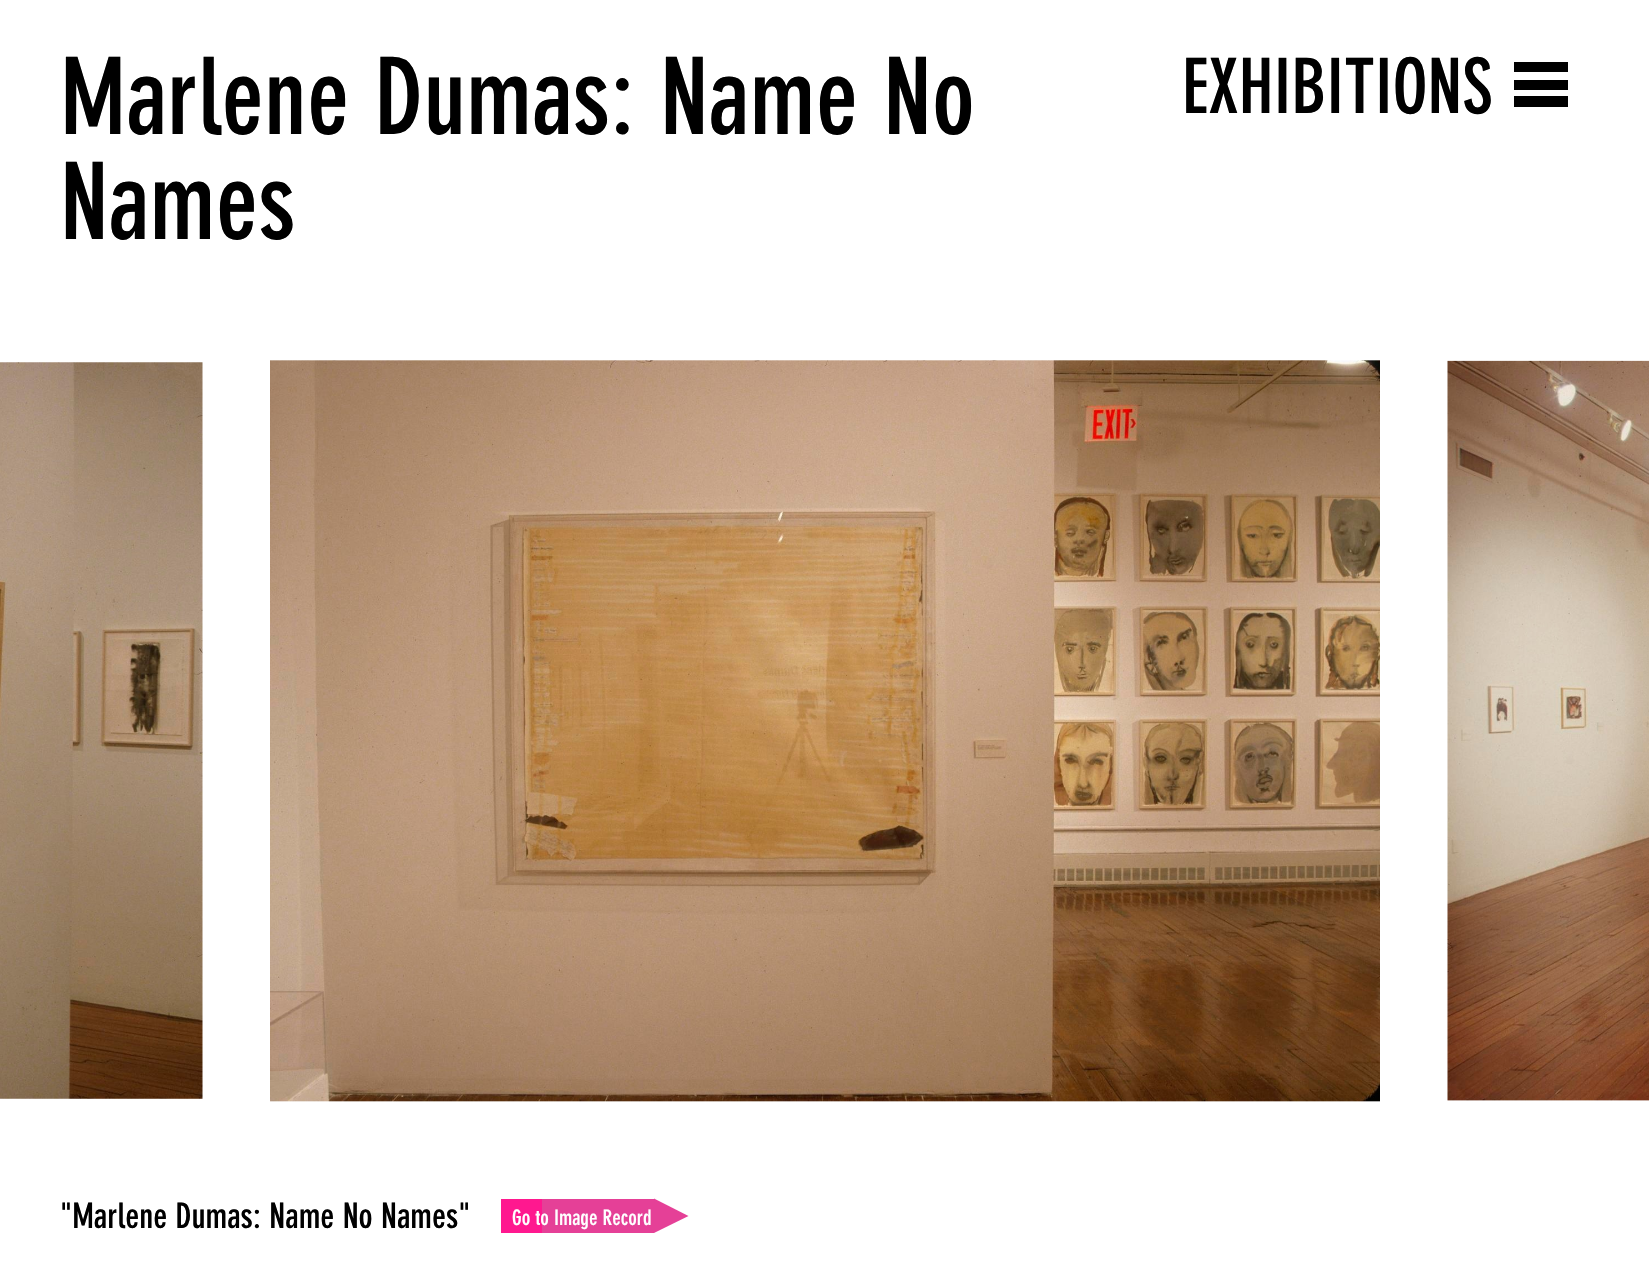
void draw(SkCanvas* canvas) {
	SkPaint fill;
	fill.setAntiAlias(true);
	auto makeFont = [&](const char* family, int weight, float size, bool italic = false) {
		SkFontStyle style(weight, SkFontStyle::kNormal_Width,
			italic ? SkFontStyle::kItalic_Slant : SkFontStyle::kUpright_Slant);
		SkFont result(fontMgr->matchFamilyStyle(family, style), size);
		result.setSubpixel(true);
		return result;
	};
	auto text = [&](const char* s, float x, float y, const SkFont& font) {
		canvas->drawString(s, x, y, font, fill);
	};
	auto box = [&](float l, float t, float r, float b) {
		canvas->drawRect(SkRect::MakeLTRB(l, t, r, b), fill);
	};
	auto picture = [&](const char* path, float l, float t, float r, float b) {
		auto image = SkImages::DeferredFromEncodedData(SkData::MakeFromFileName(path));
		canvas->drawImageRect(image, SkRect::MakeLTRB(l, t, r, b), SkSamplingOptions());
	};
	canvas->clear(0xFFFFFFFF);
	fill.setColor(0xFF000000);
	box(1514, 62, 1568, 72);
	box(1514, 80, 1568, 90);
	box(1514, 96, 1568, 107);
	picture("image0.png", 0, 362, 203, 1099);
	picture("image1.png", 270, 360, 1380, 1102);
	picture("image2.png", 1447, 360, 1649, 1101);
	fill.setColor(0xFFFF188F);
	box(501, 1199, 542, 1233);
	fill.setColor(0xFFE54097);
	box(542, 1199, 654, 1233);
	canvas->drawPath(SkPathBuilder(SkPathFillType::kEvenOdd).moveTo(688.5f, 1216).lineTo(654, 1233).lineTo(654, 1198.5f).close().detach(), fill);
	auto font1 = makeFont("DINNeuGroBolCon", 100, 105);
	fill.setColor(0xFF000000);
	text("Marlene Dumas: Name No", 60, 134, font1);
	text("Names", 60, 239, font1);
	auto font2 = makeFont("DINNeuGroBolCon", 100, 75);
	text("EXHIBITIONS", 1182, 113, font2);
	auto font3 = makeFont("DINNeuGroBolCon", 100, 34.5f);
	text("\"Marlene Dumas: Name No Names\"", 60, 1228, font3);
	auto font4 = makeFont("DINNeuGroBolCon", 100, 21);
	fill.setColor(0xFFFFFFFF);
	text("Go to Image Record", 512, 1225, font4);
}
